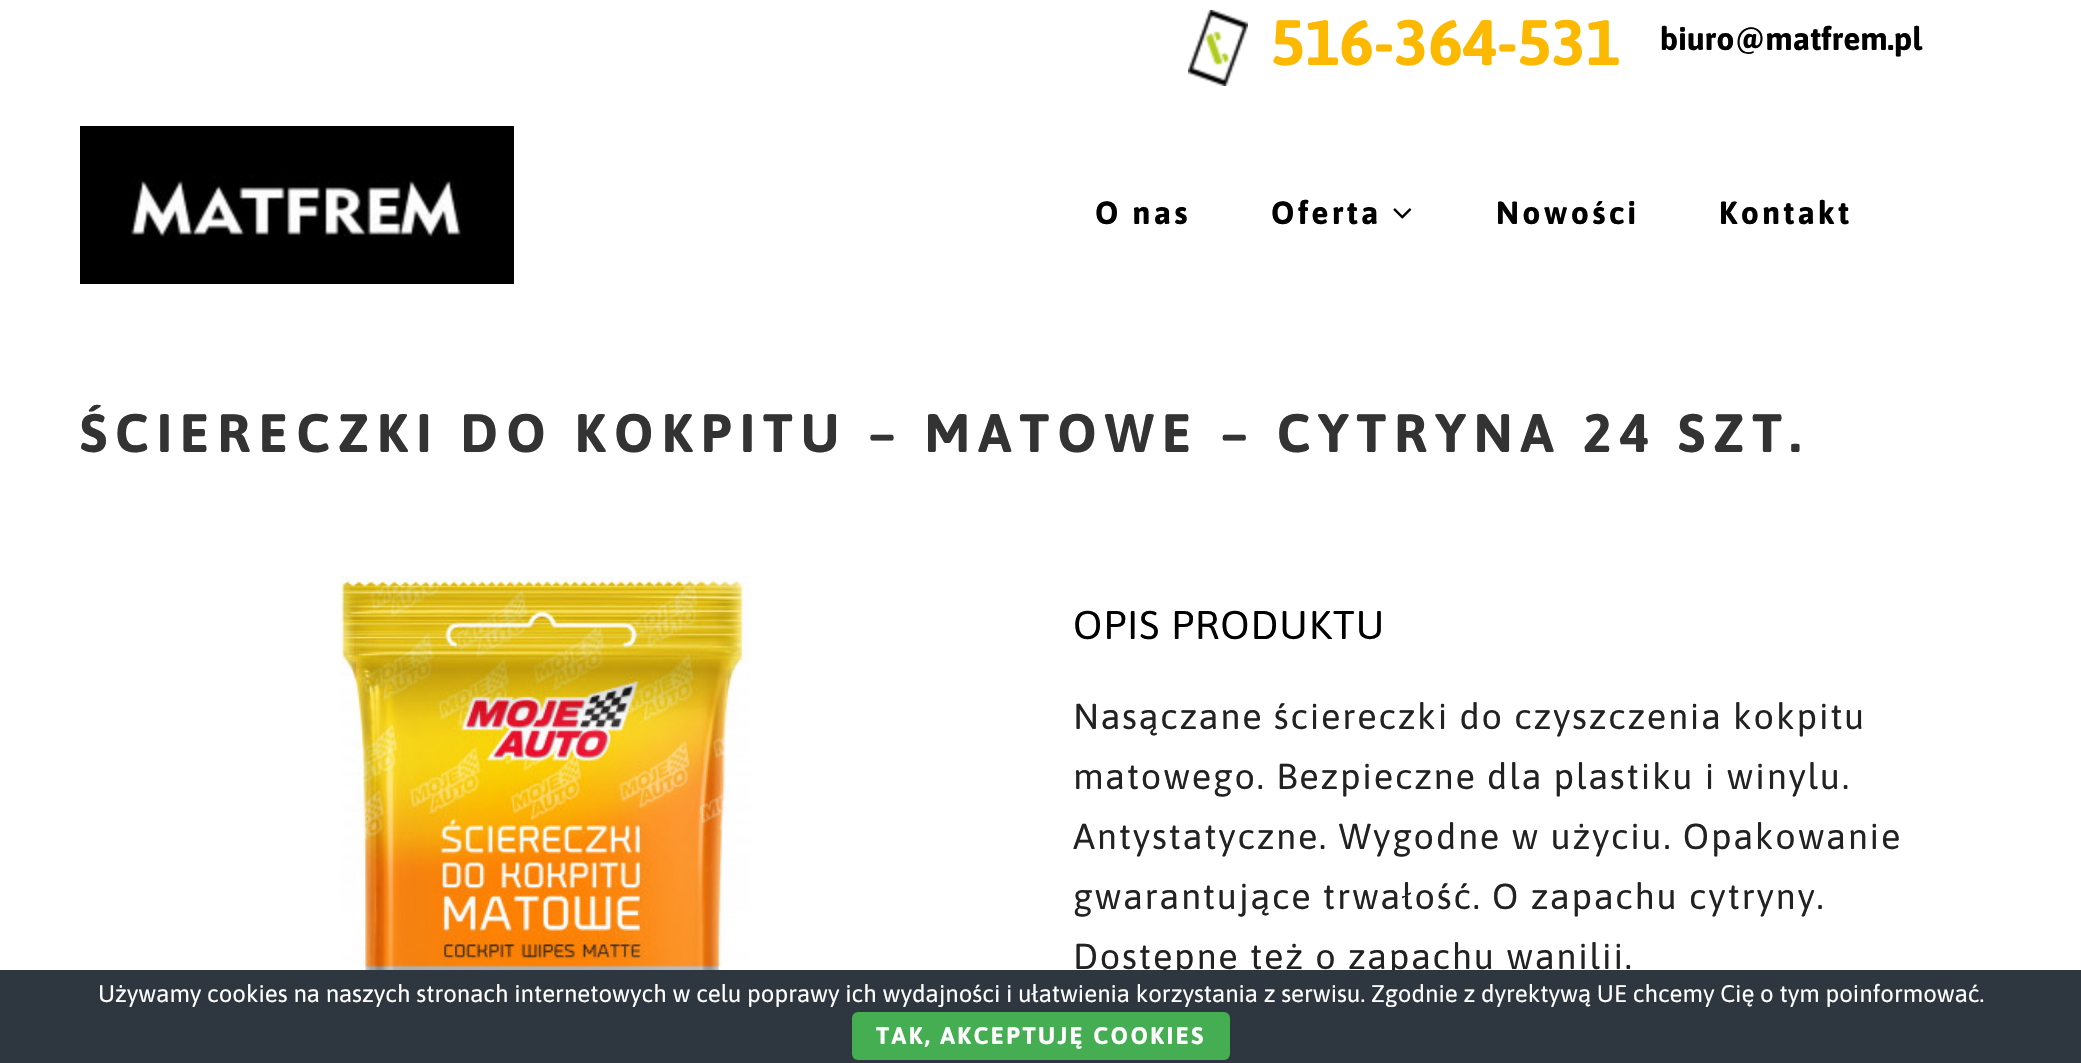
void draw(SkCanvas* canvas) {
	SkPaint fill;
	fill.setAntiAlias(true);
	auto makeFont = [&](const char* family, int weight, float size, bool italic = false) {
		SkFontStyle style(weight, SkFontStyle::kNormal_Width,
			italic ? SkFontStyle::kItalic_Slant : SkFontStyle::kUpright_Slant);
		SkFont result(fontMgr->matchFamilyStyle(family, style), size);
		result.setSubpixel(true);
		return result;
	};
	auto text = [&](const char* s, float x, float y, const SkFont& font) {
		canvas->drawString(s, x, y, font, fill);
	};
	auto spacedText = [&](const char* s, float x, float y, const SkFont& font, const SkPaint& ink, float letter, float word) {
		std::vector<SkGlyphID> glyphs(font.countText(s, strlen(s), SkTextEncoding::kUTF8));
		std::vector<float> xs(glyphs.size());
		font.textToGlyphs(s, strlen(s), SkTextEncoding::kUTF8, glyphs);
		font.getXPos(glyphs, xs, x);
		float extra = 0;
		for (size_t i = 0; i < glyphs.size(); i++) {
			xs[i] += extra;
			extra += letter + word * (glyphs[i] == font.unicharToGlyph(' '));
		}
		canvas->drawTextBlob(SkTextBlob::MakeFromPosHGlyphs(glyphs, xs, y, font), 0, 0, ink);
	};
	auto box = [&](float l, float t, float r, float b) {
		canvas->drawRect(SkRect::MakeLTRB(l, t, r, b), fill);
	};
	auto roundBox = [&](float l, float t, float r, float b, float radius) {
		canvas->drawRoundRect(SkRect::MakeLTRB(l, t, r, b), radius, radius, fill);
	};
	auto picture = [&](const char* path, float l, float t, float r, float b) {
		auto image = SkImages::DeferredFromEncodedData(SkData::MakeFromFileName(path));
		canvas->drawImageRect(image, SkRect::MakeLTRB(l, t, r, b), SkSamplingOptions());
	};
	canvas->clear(0xFFFFFFFF);
	picture("image0.png", 1188, 10, 1248, 86);
	picture("image1.png", 80, 126, 514, 284);
	picture("image2.png", 1393, 208, 1412, 219);
	picture("image3.png", 340, 576, 750, 970);
	auto font1 = makeFont("Asap", 700, 64);
	fill.setColor(0xFFFCB900);
	text("516-364-531", 1271, 65, font1);
	auto font2 = makeFont("Asap", 700, 32);
	fill.setColor(0xFF000000);
	text("biuro@matfrem.pl", 1660, 50, font2);
	spacedText("O nas", 1095, 224, font2, fill, 3.25f, 0);
	spacedText("Oferta", 1271, 224, font2, fill, 3.25f, 0);
	spacedText("Nowości", 1496, 224, font2, fill, 3.25f, 0);
	spacedText("Kontakt", 1719, 224, font2, fill, 3.25f, 0);
	auto font3 = makeFont("Asap", 700, 54);
	fill.setColor(0xFF333333);
	spacedText("ŚCIERECZKI DO KOKPITU – MATOWE – CYTRYNA 24 SZT.", 80, 452, font3, fill, 8.1f, 0);
	auto font4 = makeFont("Asap", 400, 40);
	fill.setColor(0xFF000000);
	spacedText("OPIS PRODUKTU", 1073, 639, font4, fill, 1, 0);
	auto font5 = makeFont("Asap", 400, 36);
	fill.setColor(0xFF222222);
	spacedText("Nasączane ściereczki do czyszczenia kokpitu", 1073, 729, font5, fill, 1.8f, 0);
	spacedText("matowego. Bezpieczne dla plastiku i winylu.", 1073, 789, font5, fill, 1.8f, 0);
	spacedText("Antystatyczne. Wygodne w użyciu. Opakowanie", 1073, 849, font5, fill, 1.8f, 0);
	spacedText("gwarantujące trwałość. O zapachu cytryny.", 1073, 909, font5, fill, 1.8f, 0);
	spacedText("Dostępne też o zapachu wanilii.", 1073, 969, font5, fill, 1.8f, 0);
	fill.setColor(0xFF2E363F);
	box(0, 970, 2081, 1063);
	auto font6 = makeFont("Asap", 400, 24);
	fill.setColor(0xFFFFFFFF);
	text("Używamy cookies na naszych stronach internetowych w celu poprawy ich wydajności i ułatwienia korzystania z serwisu. Zgodnie z dyrektywą UE chcemy Cię o tym poinformować.", 98, 1002, font6);
	fill.setColor(0xFF45AE52);
	roundBox(852, 1012, 1230, 1060, 6);
	auto font7 = makeFont("Asap", 700, 24);
	fill.setColor(0xFFFFFFFF);
	spacedText("TAK, AKCEPTUJĘ COOKIES", 876, 1044, font7, fill, 2.4f, 0);
}
